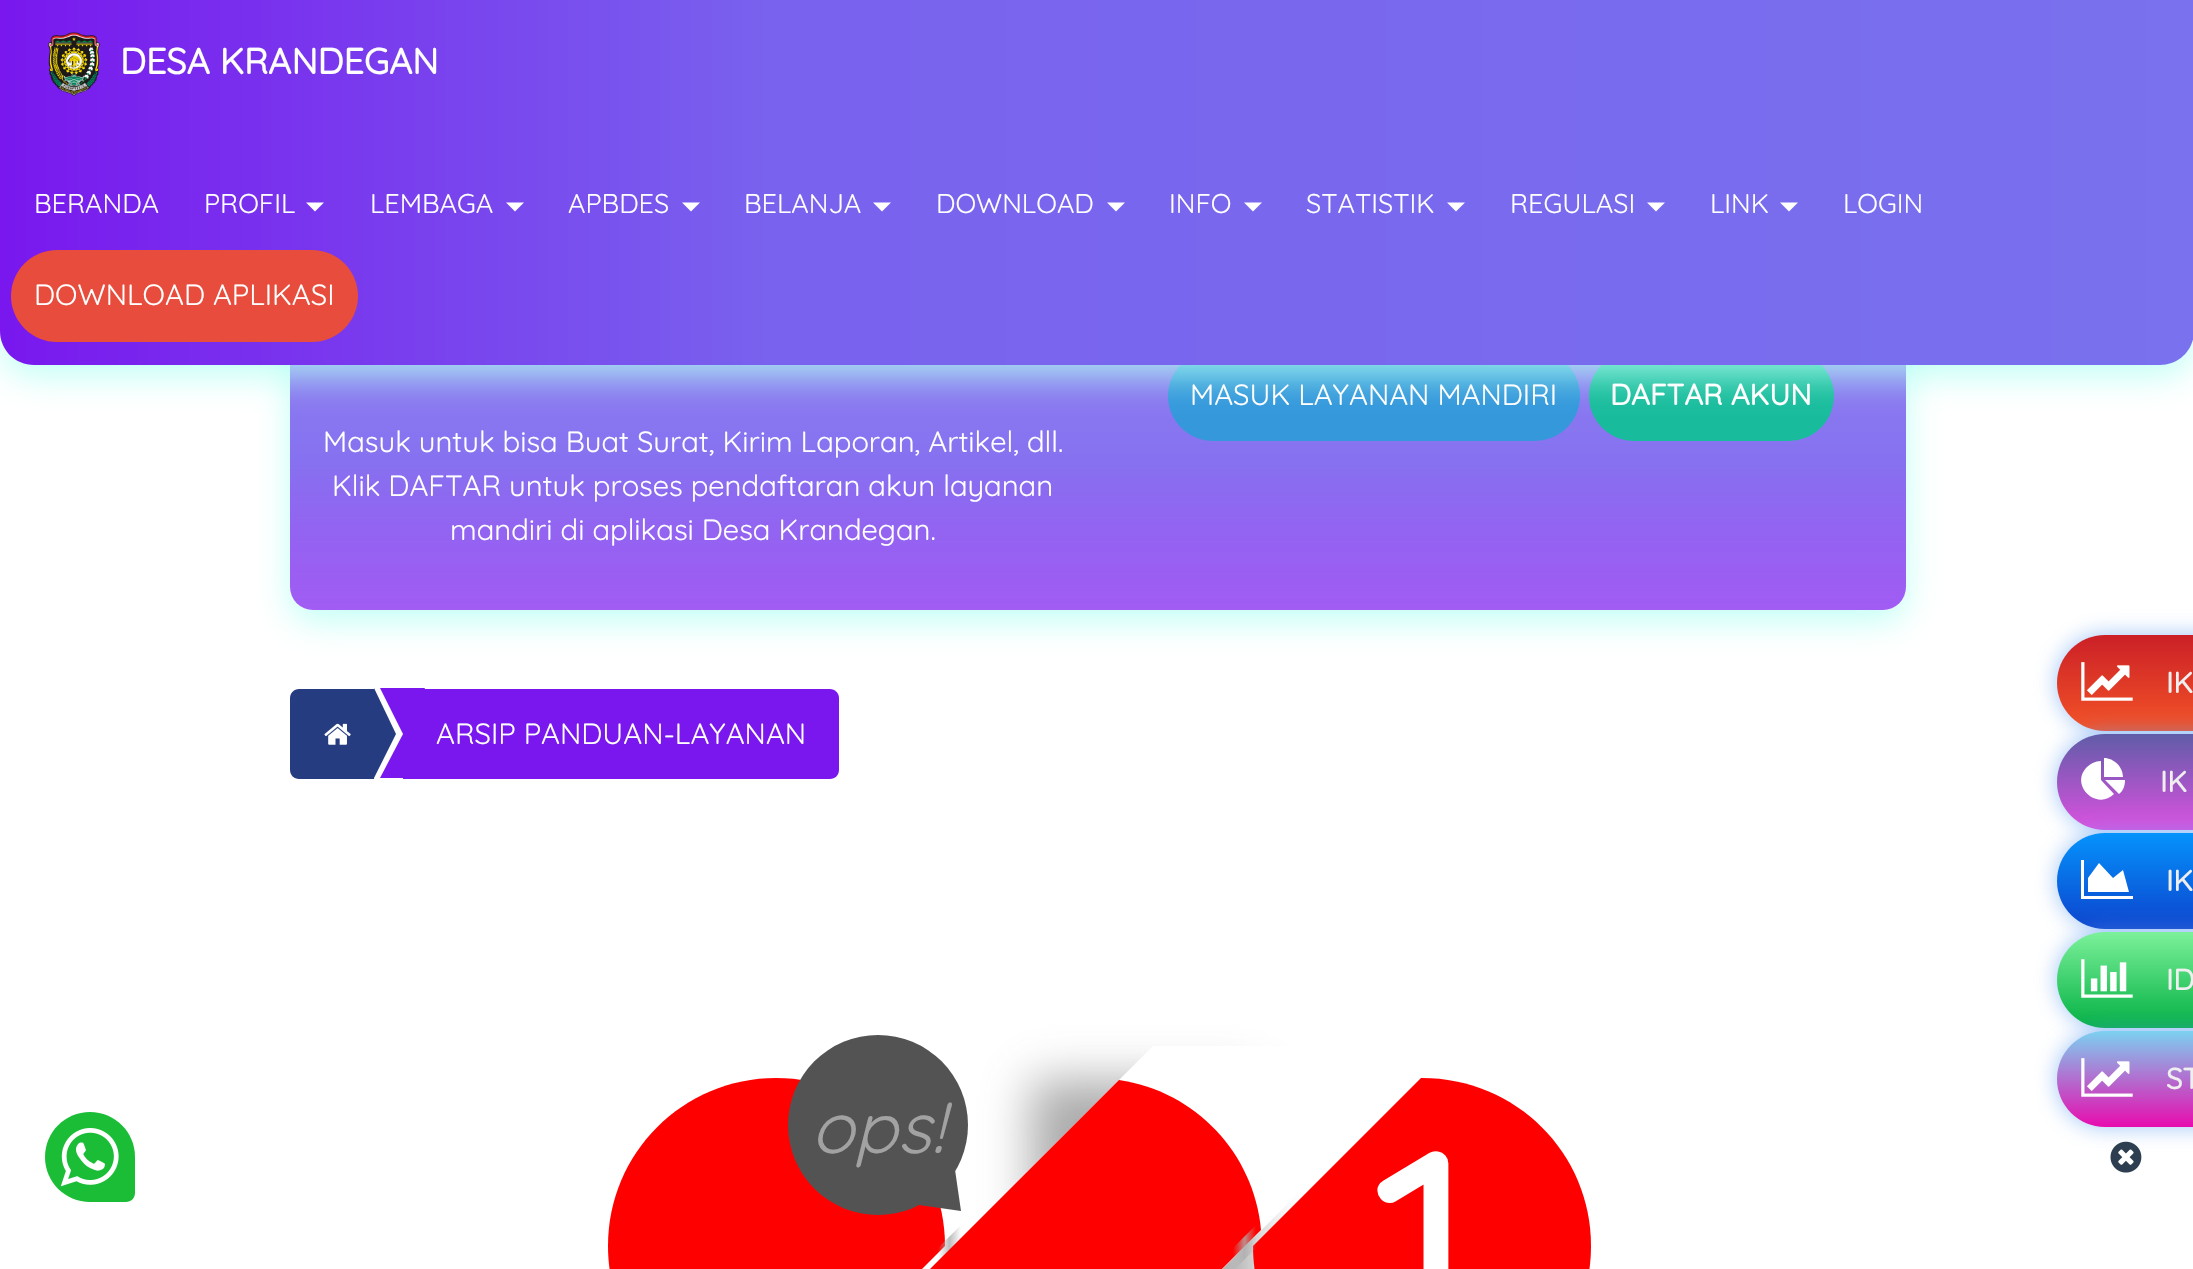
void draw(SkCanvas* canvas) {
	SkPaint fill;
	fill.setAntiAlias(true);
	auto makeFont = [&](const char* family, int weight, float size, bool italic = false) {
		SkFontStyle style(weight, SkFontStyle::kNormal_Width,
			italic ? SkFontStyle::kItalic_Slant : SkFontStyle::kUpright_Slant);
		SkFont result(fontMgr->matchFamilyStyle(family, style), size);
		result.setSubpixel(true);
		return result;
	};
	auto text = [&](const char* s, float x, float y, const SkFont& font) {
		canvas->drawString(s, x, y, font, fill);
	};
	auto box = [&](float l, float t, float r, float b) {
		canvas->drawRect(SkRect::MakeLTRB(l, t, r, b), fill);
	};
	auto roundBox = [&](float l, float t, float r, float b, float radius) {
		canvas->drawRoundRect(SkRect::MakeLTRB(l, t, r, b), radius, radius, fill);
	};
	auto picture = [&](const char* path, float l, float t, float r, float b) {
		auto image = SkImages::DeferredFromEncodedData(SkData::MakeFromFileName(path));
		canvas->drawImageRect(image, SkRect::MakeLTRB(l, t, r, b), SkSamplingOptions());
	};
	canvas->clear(0xFFFFFFFF);
	canvas->save();
	canvas->clipPath(SkPathBuilder(SkPathFillType::kEvenOdd).moveTo(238, 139).lineTo(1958, 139).lineTo(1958, 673).lineTo(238, 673).close().moveTo(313, 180).lineTo(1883, 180).cubicTo(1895.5f, 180, 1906, 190.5f, 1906, 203).lineTo(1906, 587).cubicTo(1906, 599.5f, 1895.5f, 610, 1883, 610).lineTo(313, 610).cubicTo(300.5f, 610, 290, 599.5f, 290, 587).lineTo(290, 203).cubicTo(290, 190.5f, 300.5f, 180, 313, 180).close().detach(), true);
	fill.setColor(0xCCB2FFF3);
	fill.setMaskFilter(SkMaskFilter::MakeBlur(kNormal_SkBlurStyle, 17));
	canvas->drawRoundRect(SkRect::MakeLTRB(290, 191, 1906, 621), 23, 23, fill);
	fill.setMaskFilter(nullptr);
	canvas->restore();
	{
		const SkColor colors[] = {0xB37917EE, 0xE67962EE, 0xCC7971EE};
		const float stops[] = {0, 0.35f, 1};
		const SkPoint ends[] = {{1098, 610}, {1098, 180}};
		fill.setShader(SkGradientShader::MakeLinear(ends, colors, stops, 3, SkTileMode::kClamp));
		fill.setAlpha(255);
	}
	roundBox(290, 180, 1906, 610, 23);
	fill.setShader(nullptr);
	fill.setColor(0xFF3498DB);
	roundBox(1168, 351, 1580, 441, 45);
	fill.setColor(0xFF18BC9C);
	roundBox(1589, 351, 1834, 441, 45);
	fill.setColor(0xCCB2FFF3);
	fill.setMaskFilter(SkMaskFilter::MakeBlur(kNormal_SkBlurStyle, 17));
	canvas->drawRoundRect(SkRect::MakeLTRB(0, 11, 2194, 376), 34, 34, fill);
	fill.setMaskFilter(nullptr);
	{
		const SkColor colors[] = {0xFF7917EE, 0xFF7962EE, 0xFF7971EE};
		const float stops[] = {0, 0.35f, 1};
		const SkPoint ends[] = {{0, 182}, {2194, 182}};
		fill.setShader(SkGradientShader::MakeLinear(ends, colors, stops, 3, SkTileMode::kClamp));
		fill.setAlpha(255);
	}
	canvas->drawPath(SkPathBuilder().moveTo(0, 0).lineTo(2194, 0).lineTo(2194, 331).cubicTo(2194, 350, 2179, 365, 2160, 365).lineTo(34, 365).cubicTo(15, 365, 0, 350, 0, 331).close().detach(), fill);
	picture("image0.png", 48, 32, 100, 96);
	fill.setShader(nullptr);
	fill.setColor(0xFFFFFFFF);
	canvas->drawPath(SkPathBuilder().moveTo(306, 202.5f).lineTo(324, 202.5f).lineTo(315, 211.5f).close().detach(), fill);
	canvas->drawPath(SkPathBuilder().moveTo(506, 202.5f).lineTo(524, 202.5f).lineTo(515, 211.5f).close().detach(), fill);
	canvas->drawPath(SkPathBuilder().moveTo(682, 202.5f).lineTo(700, 202.5f).lineTo(691, 211.5f).close().detach(), fill);
	canvas->drawPath(SkPathBuilder().moveTo(873, 202.5f).lineTo(891, 202.5f).lineTo(882, 211.5f).close().detach(), fill);
	canvas->drawPath(SkPathBuilder().moveTo(1107, 202.5f).lineTo(1125, 202.5f).lineTo(1116, 211.5f).close().detach(), fill);
	canvas->drawPath(SkPathBuilder().moveTo(1244, 202.5f).lineTo(1262, 202.5f).lineTo(1253, 211.5f).close().detach(), fill);
	canvas->drawPath(SkPathBuilder().moveTo(1447, 202.5f).lineTo(1465, 202.5f).lineTo(1456, 211.5f).close().detach(), fill);
	canvas->drawPath(SkPathBuilder().moveTo(1647, 202.5f).lineTo(1665, 202.5f).lineTo(1656, 211.5f).close().detach(), fill);
	canvas->drawPath(SkPathBuilder().moveTo(1780, 202.5f).lineTo(1798, 202.5f).lineTo(1789, 211.5f).close().detach(), fill);
	fill.setColor(0xFFE74C3C);
	roundBox(11, 250, 358, 342, 46);
	fill.setColor(0xFF253C80);
	canvas->drawPath(SkPathBuilder().moveTo(299, 689).lineTo(374, 689).lineTo(374, 779).lineTo(299, 779).cubicTo(294, 779, 290, 775, 290, 770).lineTo(290, 698).cubicTo(290, 693, 294, 689, 299, 689).close().detach(), fill);
	picture("image1.png", 324, 723, 351, 745);
	canvas->drawPath(SkPathBuilder().moveTo(374, 778).lineTo(374, 688).lineTo(396, 734).close().detach(), fill);
	fill.setColor(0xFF7917EE);
	canvas->drawPath(SkPathBuilder().moveTo(425, 689).lineTo(830, 689).cubicTo(835, 689, 839, 693, 839, 698).lineTo(839, 770).cubicTo(839, 775, 835, 779, 830, 779).lineTo(425, 779).close().detach(), fill);
	canvas->drawPath(SkPathBuilder().moveTo(380, 688).lineTo(425, 688).lineTo(403, 734).close().detach(), fill);
	box(403, 689, 425, 779);
	canvas->drawPath(SkPathBuilder().moveTo(425, 778).lineTo(380, 778).lineTo(403, 734).close().detach(), fill);
	fill.setColor(0xFFFF0000);
	canvas->drawPath(SkPathBuilder().moveTo(776, 1078).cubicTo(869, 1078, 945, 1153, 945, 1246).lineTo(776, 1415).cubicTo(683, 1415, 608, 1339, 608, 1246).cubicTo(608, 1153, 683, 1078, 776, 1078).close().detach(), fill);
	{
		const SkColor colors[] = {0x00ADADAD, 0xCCADADAD, 0x00ADADAD};
		const float stops[] = {0, 0.5f, 1};
		const SkPoint ends[] = {{938, 1248}, {961, 1248}};
		fill.setShader(SkGradientShader::MakeLinear(ends, colors, stops, 3, SkTileMode::kClamp));
		fill.setAlpha(255);
	}
	canvas->drawPath(SkPathBuilder().moveTo(1152, 1046).cubicTo(1158, 1046, 1072, 1136, 961, 1248).cubicTo(849, 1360, 753, 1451, 747, 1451).cubicTo(741, 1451, 826, 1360, 938, 1248).cubicTo(1050, 1136, 1146, 1046, 1152, 1046).close().detach(), fill);
	canvas->save();
	canvas->clipPath(SkPathBuilder(SkPathFillType::kEvenOdd).moveTo(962, 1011).lineTo(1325, 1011).lineTo(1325, 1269).lineTo(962, 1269).close().moveTo(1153, 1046).lineTo(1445.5f, 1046).lineTo(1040.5f, 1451).lineTo(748, 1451).close().detach(), true);
	fill.setShader(nullptr);
	fill.setColor(0xCC969696);
	fill.setMaskFilter(SkMaskFilter::MakeBlur(kNormal_SkBlurStyle, 22.5f));
	canvas->drawRect(SkRect::MakeLTRB(1031, 1080, 1256, 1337), fill);
	fill.setMaskFilter(nullptr);
	canvas->restore();
	fill.setColor(0xFFFF0000);
	canvas->drawPath(SkPathBuilder().moveTo(927, 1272).lineTo(1119, 1080).cubicTo(1195, 1091, 1254, 1153, 1261, 1230).lineTo(1077, 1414).cubicTo(1000, 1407, 938, 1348, 927, 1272).close().detach(), fill);
	fill.setColor(0xFF535353);
	canvas->drawCircle(878, 1125, 90, fill);
	fill.setColor(0xFFFF0000);
	canvas->drawPath(SkPathBuilder().moveTo(1253, 1246).lineTo(1421, 1078).lineTo(1422, 1078).cubicTo(1516, 1078, 1591, 1153, 1591, 1246).cubicTo(1591, 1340, 1516, 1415, 1422, 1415).cubicTo(1328, 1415, 1253, 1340, 1253, 1246).close().detach(), fill);
	fill.setColor(0x9C609FF4);
	fill.setMaskFilter(SkMaskFilter::MakeBlur(kNormal_SkBlurStyle, 11));
	canvas->drawRoundRect(SkRect::MakeLTRB(2057, 635, 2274, 731), 48, 48, fill);
	fill.setMaskFilter(nullptr);
	{
		const SkColor colors[] = {0xFFF35327, 0xFFCB2027};
		const float stops[] = {0, 1};
		const SkPoint ends[] = {{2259, 731}, {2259, 635}};
		fill.setShader(SkGradientShader::MakeLinear(ends, colors, stops, 2, SkTileMode::kClamp));
		fill.setAlpha(255);
	}
	canvas->drawPath(SkPathBuilder().moveTo(2105, 635).lineTo(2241, 635).lineTo(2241, 731).lineTo(2105, 731).cubicTo(2078.5f, 731, 2057, 709.5f, 2057, 683).cubicTo(2057, 656.5f, 2078.5f, 635, 2105, 635).close().detach(), fill);
	fill.setShader(nullptr);
	fill.setColor(0x9C609FF4);
	fill.setMaskFilter(SkMaskFilter::MakeBlur(kNormal_SkBlurStyle, 11));
	canvas->drawRoundRect(SkRect::MakeLTRB(2057, 734, 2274, 830), 48, 48, fill);
	fill.setMaskFilter(nullptr);
	picture("image2.png", 2081, 662, 2133, 701);
	{
		const SkColor colors[] = {0xFF605CA8, 0xFFDC51E0};
		const float stops[] = {0, 1};
		const SkPoint ends[] = {{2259, 734}, {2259, 830}};
		fill.setShader(SkGradientShader::MakeLinear(ends, colors, stops, 2, SkTileMode::kClamp));
		fill.setAlpha(255);
	}
	canvas->drawPath(SkPathBuilder().moveTo(2105, 734).lineTo(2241, 734).lineTo(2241, 830).lineTo(2105, 830).cubicTo(2078.5f, 830, 2057, 808.5f, 2057, 782).cubicTo(2057, 755.5f, 2078.5f, 734, 2105, 734).close().detach(), fill);
	fill.setShader(nullptr);
	fill.setColor(0x9C609FF4);
	fill.setMaskFilter(SkMaskFilter::MakeBlur(kNormal_SkBlurStyle, 11));
	canvas->drawRoundRect(SkRect::MakeLTRB(2057, 833, 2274, 929), 48, 48, fill);
	fill.setMaskFilter(nullptr);
	fill.setColor(0xFFFFFFFF);
	canvas->drawPath(SkPathBuilder().moveTo(2101, 780).lineTo(2114, 794).cubicTo(2097, 811, 2070, 786, 2086, 768).cubicTo(2090, 764, 2095, 761, 2101, 761).close().moveTo(2105, 780).lineTo(2125, 780).cubicTo(2125, 786, 2123, 791, 2119, 794).close().moveTo(2123, 777).lineTo(2104, 777).lineTo(2104, 758).cubicTo(2114, 758, 2123, 767, 2123, 777).close().detach(), fill);
	{
		const SkColor colors[] = {0xFF0C43CD, 0xFF0593FC};
		const float stops[] = {0, 1};
		const SkPoint ends[] = {{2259, 929}, {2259, 833}};
		fill.setShader(SkGradientShader::MakeLinear(ends, colors, stops, 2, SkTileMode::kClamp));
		fill.setAlpha(255);
	}
	canvas->drawPath(SkPathBuilder().moveTo(2105, 833).lineTo(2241, 833).lineTo(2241, 929).lineTo(2105, 929).cubicTo(2078.5f, 929, 2057, 907.5f, 2057, 881).cubicTo(2057, 854.5f, 2078.5f, 833, 2105, 833).close().detach(), fill);
	fill.setShader(nullptr);
	fill.setColor(0x9C609FF4);
	fill.setMaskFilter(SkMaskFilter::MakeBlur(kNormal_SkBlurStyle, 11));
	canvas->drawRoundRect(SkRect::MakeLTRB(2057, 932, 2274, 1028), 48, 48, fill);
	fill.setMaskFilter(nullptr);
	fill.setColor(0xFFFFFFFF);
	canvas->drawPath(SkPathBuilder().moveTo(2133, 896).lineTo(2133, 899).lineTo(2081, 899).lineTo(2081, 860).lineTo(2084, 860).lineTo(2084, 896).close().moveTo(2123, 870).lineTo(2129, 892).lineTo(2088, 892).lineTo(2088, 878).lineTo(2099, 863).lineTo(2113, 878).close().detach(), fill);
	{
		const SkColor colors[] = {0xFF02B042, 0xFF7CF19B};
		const float stops[] = {0, 1};
		const SkPoint ends[] = {{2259, 1028}, {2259, 932}};
		fill.setShader(SkGradientShader::MakeLinear(ends, colors, stops, 2, SkTileMode::kClamp));
		fill.setAlpha(255);
	}
	canvas->drawPath(SkPathBuilder().moveTo(2105, 932).lineTo(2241, 932).lineTo(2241, 1028).lineTo(2105, 1028).cubicTo(2078.5f, 1028, 2057, 1006.5f, 2057, 980).cubicTo(2057, 953.5f, 2078.5f, 932, 2105, 932).close().detach(), fill);
	fill.setShader(nullptr);
	fill.setColor(0x9C609FF4);
	fill.setMaskFilter(SkMaskFilter::MakeBlur(kNormal_SkBlurStyle, 11));
	canvas->drawRoundRect(SkRect::MakeLTRB(2057, 1031, 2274, 1127), 48, 48, fill);
	fill.setMaskFilter(nullptr);
	picture("image3.png", 2081, 959, 2133, 998);
	{
		const SkColor colors[] = {0xFFE80BAE, 0xFF7CD1F1};
		const float stops[] = {0, 1};
		const SkPoint ends[] = {{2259, 1127}, {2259, 1031}};
		fill.setShader(SkGradientShader::MakeLinear(ends, colors, stops, 2, SkTileMode::kClamp));
		fill.setAlpha(255);
	}
	canvas->drawPath(SkPathBuilder().moveTo(2105, 1031).lineTo(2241, 1031).lineTo(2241, 1127).lineTo(2105, 1127).cubicTo(2078.5f, 1127, 2057, 1105.5f, 2057, 1079).cubicTo(2057, 1052.5f, 2078.5f, 1031, 2105, 1031).close().detach(), fill);
	picture("image4.png", 2081, 1058, 2133, 1097);
	picture("image5.png", 2110, 1141, 2142, 1173);
	fill.setShader(nullptr);
	fill.setColor(0xFF1BBD36);
	canvas->drawPath(SkPathBuilder().moveTo(90, 1112).cubicTo(115, 1112, 135, 1132, 135, 1157).lineTo(135, 1193).cubicTo(135, 1198, 131, 1202, 126, 1202).lineTo(90, 1202).cubicTo(65, 1202, 45, 1182, 45, 1157).cubicTo(45, 1132, 65, 1112, 90, 1112).close().detach(), fill);
	picture("image6.png", 60, 1128, 119, 1187);
	auto font1 = makeFont("Quicksand", 700, 36);
	fill.setColor(0xFFFFFFFF);
	text("DESA KRANDEGAN", 120, 74, font1);
	auto font2 = makeFont("Quicksand", 300, 27);
	text("BERANDA", 34, 213, font2);
	text("PROFIL", 204, 213, font2);
	text("LEMBAGA", 370, 213, font2);
	text("APBDES", 568, 213, font2);
	text("BELANJA", 744, 213, font2);
	text("DOWNLOAD", 936, 213, font2);
	text("INFO", 1169, 213, font2);
	text("STATISTIK", 1306, 213, font2);
	text("REGULASI", 1510, 213, font2);
	text("LINK", 1710, 213, font2);
	text("LOGIN", 1843, 213, font2);
	auto font3 = makeFont("Quicksand", 300, 29.25f);
	text("DOWNLOAD APLIKASI", 34, 305, font3);
	text("MASUK LAYANAN MANDIRI", 1190, 405, font3);
	auto font4 = makeFont("Quicksand", 700, 29.25f);
	text("DAFTAR AKUN", 1610, 405, font4);
	text("Masuk untuk bisa Buat Surat, Kirim Laporan, Artikel, dll.", 323, 452, font3);
	text("Klik DAFTAR untuk proses pendaftaran akun layanan", 332, 496, font3);
	text("mandiri di aplikasi Desa Krandegan.", 450, 540, font3);
	text("ARSIP PANDUAN-LAYANAN", 436, 744, font3);
	auto font5 = makeFont("Quicksand", 300, 72, true);
	fill.setColor(0xFFA2A2A2);
	text("ops!", 811, 1153, font5);
	fill.setColor(0xFF535353);
	canvas->drawPath(SkPathBuilder().moveTo(905, 1203).lineTo(953, 1156).lineTo(961, 1211).close().detach(), fill);
	auto font6 = makeFont("Quicksand", 700, 270);
	fill.setColor(0xFFFFFFFF);
	text("1", 1376, 1348, font6);
	{
		const SkColor colors[] = {0x00ADADAD, 0xCCADADAD, 0x00ADADAD};
		const float stops[] = {0, 0.5f, 1};
		const SkPoint ends[] = {{1233, 1248}, {1256, 1248}};
		fill.setShader(SkGradientShader::MakeLinear(ends, colors, stops, 3, SkTileMode::kClamp));
		fill.setAlpha(255);
	}
	canvas->drawPath(SkPathBuilder().moveTo(1447, 1046).cubicTo(1453, 1046, 1367, 1136, 1256, 1248).cubicTo(1144, 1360, 1048, 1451, 1042, 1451).cubicTo(1036, 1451, 1121, 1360, 1233, 1248).cubicTo(1345, 1136, 1441, 1046, 1447, 1046).close().detach(), fill);
	fill.setShader(nullptr);
	fill.setColor(0xFFEFEFEF);
	text("IK", 2166, 693, font4);
	text("IK", 2160, 792, font4);
	text("IK", 2166, 891, font4);
	text("ID", 2166, 990, font4);
	text("ST", 2166, 1089, font4);
}
